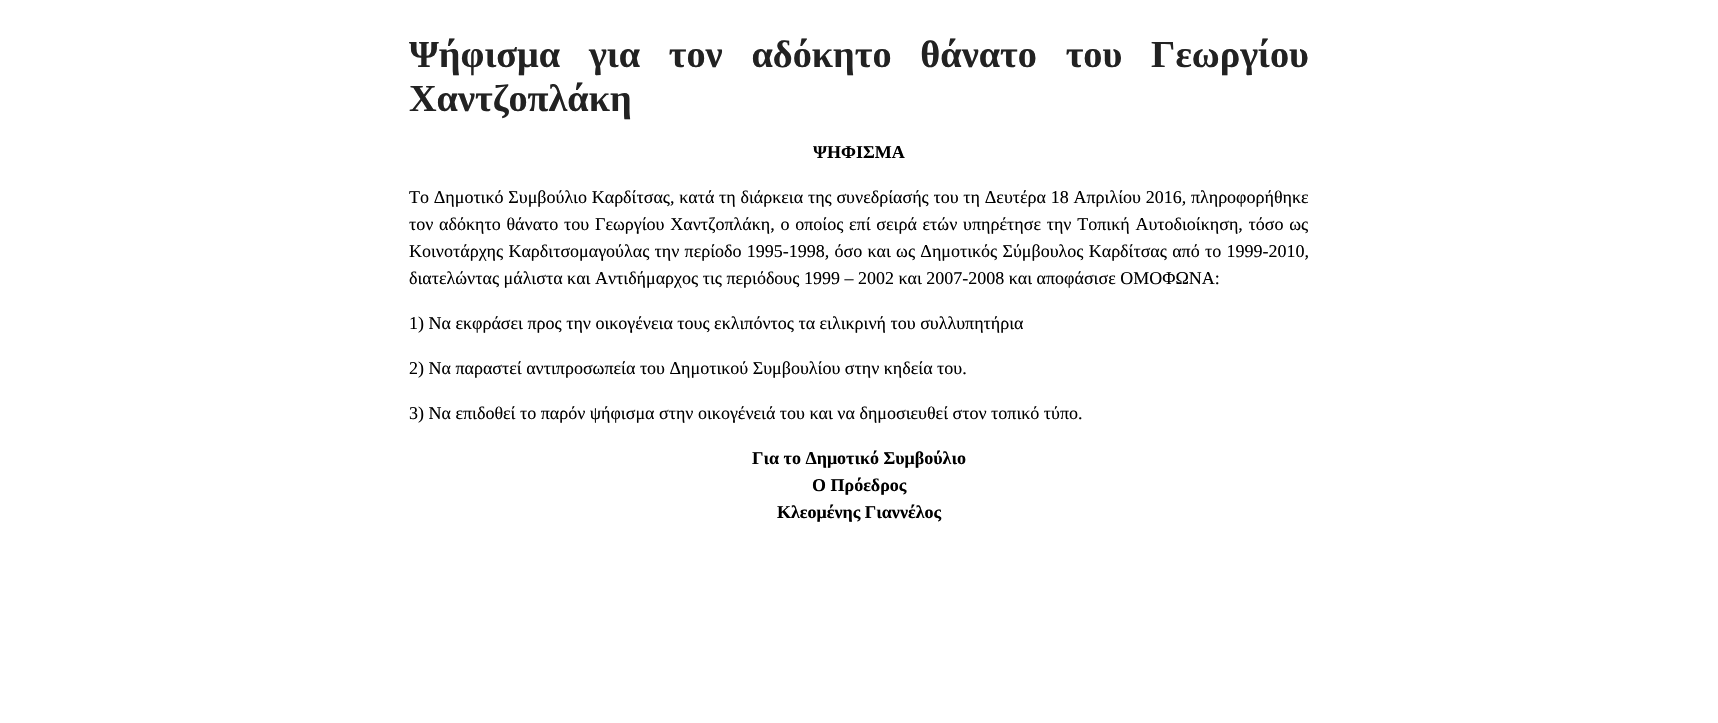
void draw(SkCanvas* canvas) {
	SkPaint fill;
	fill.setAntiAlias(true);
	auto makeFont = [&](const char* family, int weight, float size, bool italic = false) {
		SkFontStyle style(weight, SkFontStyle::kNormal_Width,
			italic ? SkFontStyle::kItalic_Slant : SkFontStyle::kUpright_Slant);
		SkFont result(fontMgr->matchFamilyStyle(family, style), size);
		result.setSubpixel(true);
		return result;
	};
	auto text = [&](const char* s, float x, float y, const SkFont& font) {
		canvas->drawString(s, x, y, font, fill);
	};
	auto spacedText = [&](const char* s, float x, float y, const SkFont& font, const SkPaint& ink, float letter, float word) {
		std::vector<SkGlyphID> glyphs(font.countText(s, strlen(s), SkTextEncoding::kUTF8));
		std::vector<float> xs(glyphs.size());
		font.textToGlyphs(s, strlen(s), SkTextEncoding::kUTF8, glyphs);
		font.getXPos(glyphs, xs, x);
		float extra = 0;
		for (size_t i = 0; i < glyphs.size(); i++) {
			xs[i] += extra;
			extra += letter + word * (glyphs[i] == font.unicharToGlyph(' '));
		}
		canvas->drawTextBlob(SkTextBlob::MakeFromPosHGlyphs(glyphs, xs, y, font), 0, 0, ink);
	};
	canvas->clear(0xFFFFFFFF);
	auto font1 = makeFont("Liberation Serif", 700, 38.25f);
	fill.setColor(0xFF222222);
	spacedText("Ψήφισμα για τον αδόκητο θάνατο του Γεωργίου", 409, 67, font1, fill, 0, 19.25f);
	text("Χαντζοπλάκη", 409, 111, font1);
	auto font2 = makeFont("Liberation Serif", 700, 18);
	fill.setColor(0xFF000000);
	text("ΨΗΦΙΣΜΑ", 813, 158, font2);
	auto font3 = makeFont("Liberation Serif", 400, 18);
	spacedText("Το Δημοτικό Συμβούλιο Καρδίτσας, κατά τη διάρκεια της συνεδρίασής του τη Δευτέρα 18 Απριλίου 2016, πληροφορήθηκε", 409, 203, font3, fill, 0, 0.25f);
	spacedText("τον αδόκητο θάνατο του Γεωργίου Χαντζοπλάκη, ο οποίος επί σειρά ετών υπηρέτησε την Τοπική Αυτοδιοίκηση, τόσο ως", 409, 230, font3, fill, 0, 1.25f);
	spacedText("Κοινοτάρχης Καρδιτσομαγούλας την περίοδο 1995-1998, όσο και ως Δημοτικός Σύμβουλος Καρδίτσας από το 1999-2010,", 409, 257, font3, fill, 0, 0.75f);
	text("διατελώντας μάλιστα και Αντιδήμαρχος τις περιόδους 1999 – 2002 και 2007-2008 και αποφάσισε ΟΜΟΦΩΝΑ:", 409, 284, font3);
	text("1) Να εκφράσει προς την οικογένεια τους εκλιπόντος τα ειλικρινή του συλλυπητήρια", 409, 329, font3);
	text("2) Να παραστεί αντιπροσωπεία του Δημοτικού Συμβουλίου στην κηδεία του.", 409, 374, font3);
	text("3) Να επιδοθεί το παρόν ψήφισμα στην οικογένειά του και να δημοσιευθεί στον τοπικό τύπο.", 409, 419, font3);
	text("Για το Δημοτικό Συμβούλιο", 752, 464, font2);
	text("Ο Πρόεδρος", 812, 491, font2);
	text("Κλεομένης Γιαννέλος", 777, 518, font2);
}
